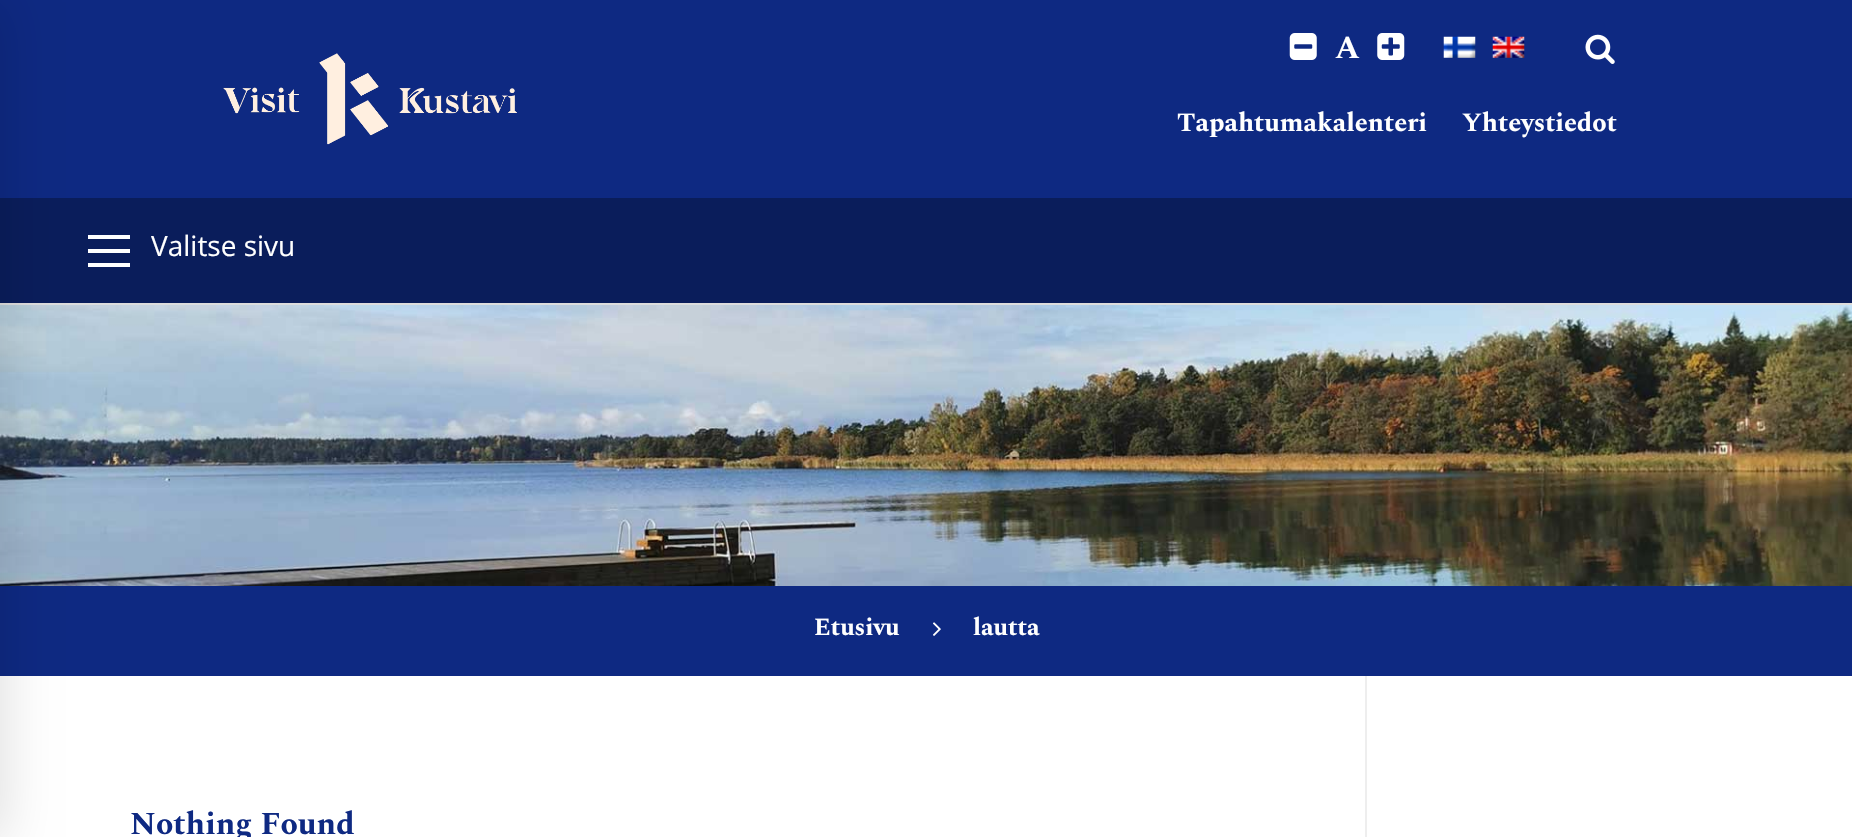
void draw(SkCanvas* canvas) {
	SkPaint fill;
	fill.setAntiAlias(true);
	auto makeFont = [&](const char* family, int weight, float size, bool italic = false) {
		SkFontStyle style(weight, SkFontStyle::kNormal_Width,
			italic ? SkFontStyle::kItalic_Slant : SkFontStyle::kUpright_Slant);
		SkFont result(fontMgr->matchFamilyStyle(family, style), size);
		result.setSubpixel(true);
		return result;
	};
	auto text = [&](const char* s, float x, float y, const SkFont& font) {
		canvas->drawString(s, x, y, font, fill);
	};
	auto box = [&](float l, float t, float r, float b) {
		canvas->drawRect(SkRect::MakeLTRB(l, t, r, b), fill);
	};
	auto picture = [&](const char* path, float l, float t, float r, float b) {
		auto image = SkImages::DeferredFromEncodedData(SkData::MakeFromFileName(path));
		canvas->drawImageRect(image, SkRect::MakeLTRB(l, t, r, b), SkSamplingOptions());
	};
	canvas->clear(0xFFFFFFFF);
	fill.setColor(0xFF0E2982);
	box(0, 0, 1852, 198);
	fill.setColor(0xFFDDDDDD);
	box(0, 303, 1852, 305);
	fill.setColor(0xFF0A1D5B);
	box(0, 198, 1852, 303);
	picture("image6.png", 0, 305, 1852, 586);
	fill.setColor(0xFF0E2982);
	box(0, 586, 1852, 676);
	fill.setColor(0x1F000000);
	fill.setMaskFilter(SkMaskFilter::MakeBlur(kNormal_SkBlurStyle, 25.5f));
	canvas->drawRect(SkRect::MakeLTRB(-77, 2, 5, 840), fill);
	fill.setMaskFilter(nullptr);
	picture("image0.png", 223, 53, 517, 145);
	picture("image1.png", 1289, 33, 1317, 60);
	picture("image2.png", 1377, 33, 1405, 60);
	picture("image3.png", 1443, 36, 1476, 58);
	picture("image4.png", 1492, 36, 1525, 58);
	picture("image5.png", 1585, 34, 1615, 64);
	fill.setColor(0xFFFFFFFF);
	box(88, 249, 130, 253);
	box(88, 235, 130, 239);
	box(88, 263, 130, 267);
	picture("image7.png", 933, 622, 941, 636);
	fill.setColor(0xFFEEEEEE);
	box(1365, 676, 1367, 837);
	auto font1 = makeFont("Spectral", 700, 32);
	fill.setColor(0xFFFFFFFF);
	text("A", 1335, 58, font1);
	auto font2 = makeFont("Spectral", 700, 26.25f);
	text("Tapahtumakalenteri", 1177, 131, font2);
	text("Yhteystiedot", 1462, 131, font2);
	auto font3 = makeFont("Open Sans", 400, 28);
	text("Valitse sivu", 151, 256, font3);
	auto font4 = makeFont("Spectral", 700, 24.5f);
	text("Etusivu", 814, 635, font4);
	text("lautta", 973, 635, font4);
	auto font5 = makeFont("Spectral", 700, 31.75f);
	fill.setColor(0xFF0E2982);
	text("Nothing Found", 130, 834, font5);
}
